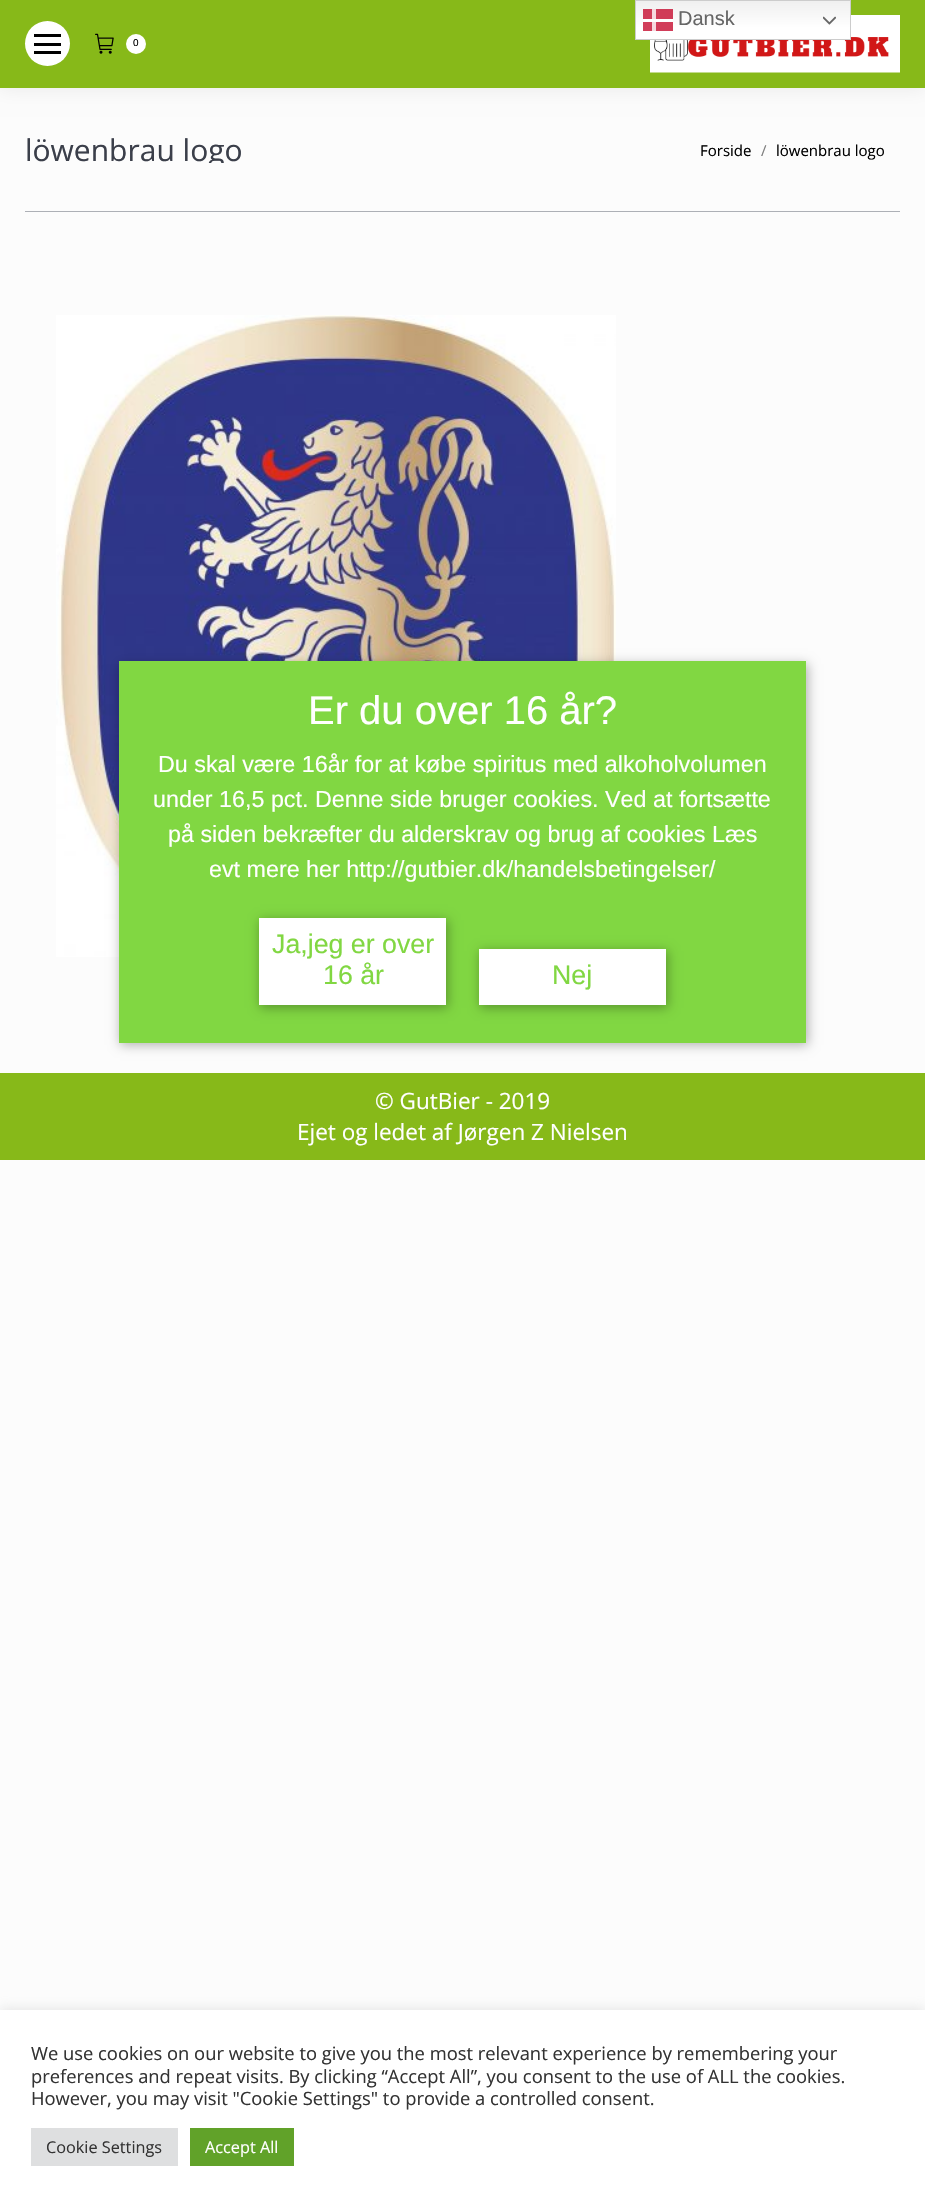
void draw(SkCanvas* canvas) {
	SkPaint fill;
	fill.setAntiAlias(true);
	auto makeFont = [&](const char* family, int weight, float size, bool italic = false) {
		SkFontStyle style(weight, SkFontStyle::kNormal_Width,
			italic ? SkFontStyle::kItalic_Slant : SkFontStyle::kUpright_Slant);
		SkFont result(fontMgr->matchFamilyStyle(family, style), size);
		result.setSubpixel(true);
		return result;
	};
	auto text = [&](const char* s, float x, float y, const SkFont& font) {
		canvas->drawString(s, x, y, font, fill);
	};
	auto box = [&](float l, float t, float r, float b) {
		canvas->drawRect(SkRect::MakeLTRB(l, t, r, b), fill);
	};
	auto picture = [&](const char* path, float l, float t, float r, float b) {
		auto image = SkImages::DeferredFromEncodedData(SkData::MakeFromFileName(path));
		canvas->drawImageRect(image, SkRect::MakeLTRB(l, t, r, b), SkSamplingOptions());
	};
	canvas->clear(0xFFFCFCFC);
	fill.setColor(0x12000000);
	fill.setMaskFilter(SkMaskFilter::MakeBlur(kNormal_SkBlurStyle, 9.5f));
	canvas->drawRect(SkRect::MakeLTRB(-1, -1, 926, 89), fill);
	fill.setMaskFilter(nullptr);
	fill.setColor(0xFF87B919);
	box(0, 0, 925, 88);
	picture("image2.png", 650, 15, 900, 73);
	{
		const SkColor colors[] = {0xFFEFEFEF, 0xFFFFFFFF};
		const float stops[] = {0, 0.7f};
		const SkPoint ends[] = {{743, 0}, {743, 40}};
		fill.setShader(SkGradientShader::MakeLinear(ends, colors, stops, 2, SkTileMode::kClamp));
		fill.setAlpha(255);
	}
	box(636, 1, 850, 39);
	fill.setStyle(SkPaint::kStroke_Style);
	fill.setStrokeWidth(1);
	fill.setShader(nullptr);
	fill.setColor(0xFFCCCCCC);
	canvas->drawRect(SkRect::MakeLTRB(635.5f, 0.5f, 850.5f, 39.5f), fill);
	fill.setStyle(SkPaint::kFill_Style);
	fill.setColor(0xCCC60C30);
	box(643, 9, 673, 31);
	fill.setColor(0xFFF6D8DE);
	box(652, 9, 656, 31);
	picture("image0.png", 823, 16, 836, 25);
	fill.setColor(0xFFFEFEFE);
	box(643, 19, 673, 22);
	fill.setColor(0xFFFFFFFF);
	canvas->drawCircle(47.5f, 43.5f, 22.5f, fill);
	fill.setColor(0xFF000000);
	box(34, 43, 61, 46);
	box(34, 34, 61, 37);
	box(34, 51, 61, 54);
	picture("image1.png", 95, 33, 114, 54);
	fill.setColor(0xFFFFFFFF);
	canvas->drawCircle(136, 44, 10, fill);
	fill.setColor(0xFFADB0B6);
	box(25, 211, 900, 212);
	picture("image3.png", 56, 315, 616, 957);
	fill.setColor(0xFF87B919);
	box(0, 1073, 925, 1160);
	fill.setColor(0x4D000000);
	fill.setMaskFilter(SkMaskFilter::MakeBlur(kNormal_SkBlurStyle, 5.5f));
	canvas->drawRect(SkRect::MakeLTRB(120, 664, 808, 1045), fill);
	fill.setMaskFilter(nullptr);
	fill.setColor(0xFF81D742);
	box(119, 661, 806, 1043);
	fill.setColor(0x4D000000);
	fill.setMaskFilter(SkMaskFilter::MakeBlur(kNormal_SkBlurStyle, 5.5f));
	canvas->drawRect(SkRect::MakeLTRB(260, 920, 448, 1008), fill);
	fill.setMaskFilter(nullptr);
	fill.setColor(0xFFFFFFFF);
	box(259, 918, 446, 1005);
	fill.setColor(0x4D000000);
	fill.setMaskFilter(SkMaskFilter::MakeBlur(kNormal_SkBlurStyle, 5.5f));
	canvas->drawRect(SkRect::MakeLTRB(480, 951, 668, 1008), fill);
	fill.setMaskFilter(nullptr);
	fill.setColor(0xFFFFFFFF);
	box(479, 949, 666, 1005);
	fill.setColor(0x4DACABAB);
	fill.setMaskFilter(SkMaskFilter::MakeBlur(kNormal_SkBlurStyle, 6));
	canvas->drawRect(SkRect::MakeLTRB(0, 2009, 925, 2203), fill);
	fill.setMaskFilter(nullptr);
	fill.setColor(0xFFFFFFFF);
	box(0, 2010, 925, 2203);
	fill.setColor(0xFFDEDFE0);
	box(31, 2128, 178, 2166);
	fill.setColor(0xFF61A229);
	box(190, 2128, 294, 2166);
	auto font1 = makeFont("Liberation Sans", 400, 20);
	fill.setColor(0xFF666666);
	text("Dansk", 678, 25, font1);
	auto font2 = makeFont("Liberation Sans", 400, 10);
	fill.setColor(0xFF000000);
	text("0", 133, 46, font2);
	canvas->save();
	canvas->clipRect(SkRect::MakeLTRB(25, 138, 243, 163));
	auto font3 = makeFont("Open Sans", 400, 30);
	fill.setColor(0xFF3B3F4A);
	text("löwenbrau logo", 25, 161, font3);
	canvas->restore();
	auto font4 = makeFont("Open Sans", 400, 15);
	fill.setColor(0xFF000000);
	text("Forside", 700, 156, font4);
	fill.setColor(0xFF7E7E7E);
	text("/", 761, 156, font4);
	fill.setColor(0xFF000000);
	text("löwenbrau logo", 776, 156, font4);
	auto font5 = makeFont("Open Sans", 400, 22.5f);
	fill.setColor(0xFFFFFFFF);
	text("© GutBier - 2019", 375, 1109, font5);
	text("Ejet og ledet af Jørgen Z Nielsen", 297, 1140, font5);
	auto font6 = makeFont("Liberation Sans", 400, 40);
	text("Er du over 16 år?", 308, 724, font6);
	auto font7 = makeFont("Liberation Sans", 400, 23.3f);
	text("Du skal være 16år for at købe spiritus med alkoholvolumen", 158, 772, font7);
	text("under 16,5 pct. Denne side bruger cookies. Ved at fortsætte", 153, 807, font7);
	text("på siden bekræfter du alderskrav og brug af cookies Læs", 168, 842, font7);
	text("evt mere her http://gutbier.dk/handelsbetingelser/", 209, 877, font7);
	auto font8 = makeFont("Liberation Sans", 400, 26.75f);
	fill.setColor(0xFF81D742);
	text("Ja,jeg er over", 272, 953, font8);
	text("16 år", 323, 984, font8);
	text("Nej", 552, 984, font8);
	auto font9 = makeFont("Open Sans", 400, 18.35f);
	fill.setColor(0xFF333333);
	text("We use cookies on our website to give you the most relevant experience by remembering your", 31, 2060, font9);
	text("preferences and repeat visits. By clicking “Accept All”, you consent to the use of ALL the cookies.", 31, 2083, font9);
	text("However, you may visit \"Cookie Settings\" to provide a controlled consent.", 31, 2105, font9);
	auto font10 = makeFont("Open Sans", 400, 16.25f);
	text("Cookie Settings", 46, 2153, font10);
	fill.setColor(0xFFFFFFFF);
	text("Accept All", 205, 2153, font10);
}
